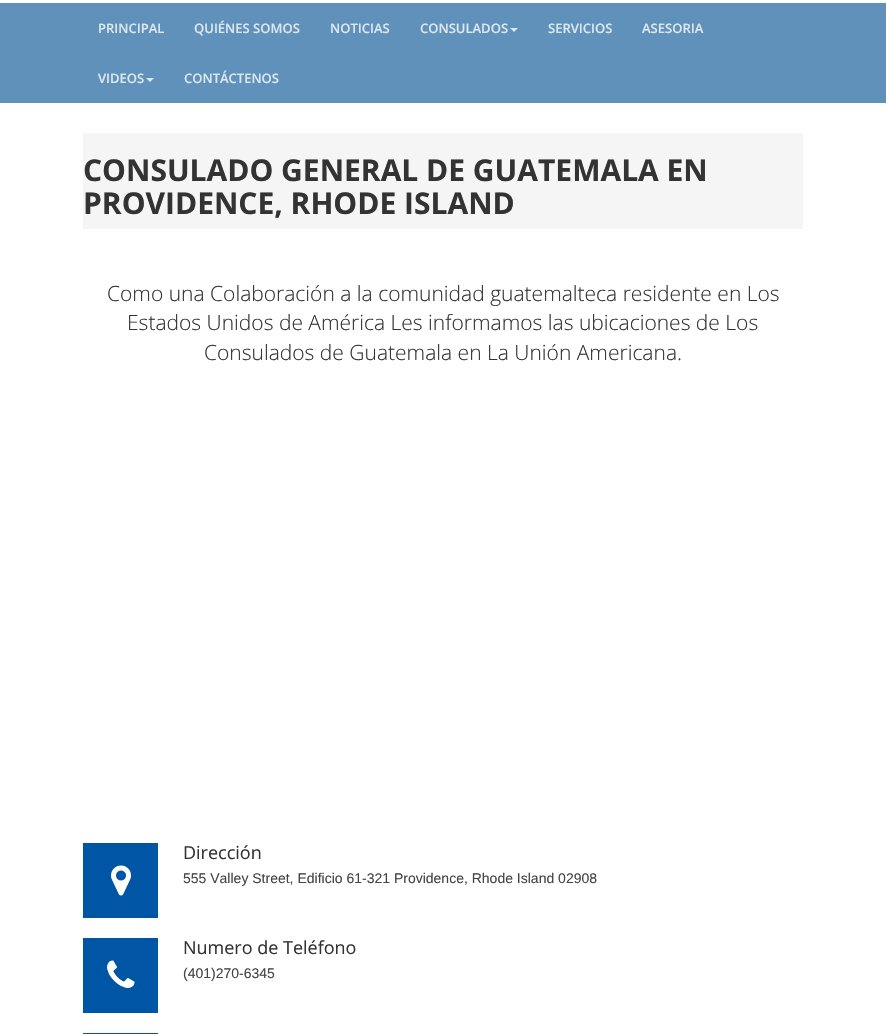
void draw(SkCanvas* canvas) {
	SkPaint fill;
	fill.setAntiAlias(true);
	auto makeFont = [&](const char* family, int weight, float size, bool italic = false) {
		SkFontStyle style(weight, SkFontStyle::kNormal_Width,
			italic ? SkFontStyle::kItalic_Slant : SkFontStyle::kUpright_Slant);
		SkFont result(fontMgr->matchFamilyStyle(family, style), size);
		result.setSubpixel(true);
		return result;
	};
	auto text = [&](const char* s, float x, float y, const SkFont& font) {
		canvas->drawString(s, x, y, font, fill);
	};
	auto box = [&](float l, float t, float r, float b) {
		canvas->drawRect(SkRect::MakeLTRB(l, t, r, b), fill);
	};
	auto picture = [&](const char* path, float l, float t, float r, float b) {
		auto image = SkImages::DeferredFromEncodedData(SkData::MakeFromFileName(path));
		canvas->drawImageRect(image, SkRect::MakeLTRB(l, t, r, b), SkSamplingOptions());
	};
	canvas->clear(0xFFFFFFFF);
	fill.setColor(0xFF6091BA);
	box(0, 3, 886, 103);
	fill.setColor(0xFFDCE7F0);
	canvas->drawPath(SkPathBuilder().moveTo(510, 28).lineTo(518, 28).lineTo(514, 32).close().detach(), fill);
	canvas->drawPath(SkPathBuilder().moveTo(146, 78).lineTo(154, 78).lineTo(150, 82).close().detach(), fill);
	fill.setColor(0xFFF5F5F5);
	box(83, 133, 803, 229);
	fill.setColor(0xFF0055A5);
	box(83, 843, 158, 918);
	picture("image0.png", 111, 865, 131, 896);
	box(83, 938, 158, 1013);
	picture("image1.png", 107, 960, 135, 988);
	box(83, 1033, 158, 1034);
	auto font1 = makeFont("Open Sans", 600, 13);
	fill.setColor(0xFFDCE7F0);
	text("PRINCIPAL", 98, 33, font1);
	text("QUIÉNES SOMOS", 194, 33, font1);
	text("NOTICIAS", 330, 33, font1);
	text("CONSULADOS", 420, 33, font1);
	text("SERVICIOS", 548, 33, font1);
	text("ASESORIA", 642, 33, font1);
	text("VIDEOS", 98, 83, font1);
	text("CONTÁCTENOS", 184, 83, font1);
	auto font2 = makeFont("Open Sans", 700, 30);
	fill.setColor(0xFF333333);
	text("CONSULADO GENERAL DE GUATEMALA EN", 83, 181, font2);
	text("PROVIDENCE, RHODE ISLAND", 83, 214, font2);
	auto font3 = makeFont("Open Sans", 300, 21);
	text("Como una Colaboración a la comunidad guatemalteca residente en Los", 107, 301, font3);
	text("Estados Unidos de América Les informamos las ubicaciones de Los", 127, 330, font3);
	text("Consulados de Guatemala en La Unión Americana.", 204, 360, font3);
	auto font4 = makeFont("Open Sans", 400, 18);
	text("Dirección", 183, 859, font4);
	auto font5 = makeFont("Liberation Sans", 400, 14);
	fill.setColor(0xFF444444);
	text("555 Valley Street, Edificio 61-321 Providence, Rhode Island 02908", 183, 883, font5);
	fill.setColor(0xFF333333);
	text("Numero de Teléfono", 183, 954, font4);
	fill.setColor(0xFF444444);
	text("(401)270-6345", 183, 978, font5);
}
